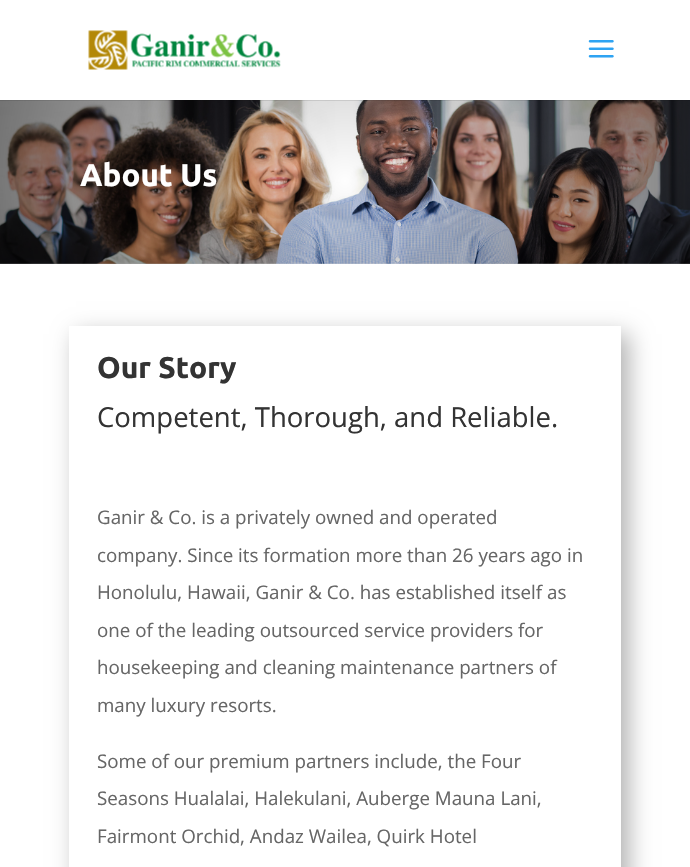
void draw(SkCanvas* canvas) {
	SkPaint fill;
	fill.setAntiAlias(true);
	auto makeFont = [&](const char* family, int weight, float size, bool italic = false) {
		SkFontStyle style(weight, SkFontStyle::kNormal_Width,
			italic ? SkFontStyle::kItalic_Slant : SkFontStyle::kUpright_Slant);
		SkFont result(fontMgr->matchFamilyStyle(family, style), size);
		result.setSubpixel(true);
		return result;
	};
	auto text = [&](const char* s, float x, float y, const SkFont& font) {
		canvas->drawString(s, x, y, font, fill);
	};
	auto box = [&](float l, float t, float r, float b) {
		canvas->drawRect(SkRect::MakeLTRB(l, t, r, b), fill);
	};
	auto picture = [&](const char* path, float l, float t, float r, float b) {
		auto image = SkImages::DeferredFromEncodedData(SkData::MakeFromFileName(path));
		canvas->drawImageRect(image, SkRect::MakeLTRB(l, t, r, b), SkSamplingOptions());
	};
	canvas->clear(0xFFFFFFFF);
	picture("image2.png", 0, 100, 690, 264);
	{
		const SkColor colors[] = {0x00000000, 0x80000000};
		const float stops[] = {0, 1};
		fill.setShader(SkGradientShader::MakeRadial({345, 181}, 355, colors, stops, 2, SkTileMode::kClamp));
		fill.setAlpha(255);
	}
	box(0, 100, 690, 264);
	fill.setShader(nullptr);
	fill.setColor(0x1A000000);
	box(0, 100, 690, 101);
	picture("image0.png", 88, 30, 281, 70);
	picture("image1.png", 588, 40, 614, 58);
	canvas->save();
	canvas->clipPath(SkPathBuilder(SkPathFillType::kEvenOdd).moveTo(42, 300).lineTo(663, 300).lineTo(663, 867).lineTo(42, 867).close().moveTo(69, 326).lineTo(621, 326).lineTo(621, 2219).lineTo(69, 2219).close().detach(), true);
	fill.setColor(0x4D000000);
	fill.setMaskFilter(SkMaskFilter::MakeBlur(kNormal_SkBlurStyle, 11));
	canvas->drawRect(SkRect::MakeLTRB(76, 334, 629, 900), fill);
	fill.setMaskFilter(nullptr);
	canvas->restore();
	auto font1 = makeFont("Ubuntu", 700, 31.25f);
	fill.setColor(0xFFFFFFFF);
	text("About Us", 80, 186, font1);
	auto font2 = makeFont("Ubuntu", 700, 30);
	fill.setColor(0xFF333333);
	text("Our Story", 97, 378, font2);
	auto font3 = makeFont("Open Sans", 400, 27.5f);
	text("Competent, Thorough, and Reliable.", 97, 427, font3);
	auto font4 = makeFont("Open Sans", 400, 18.75f);
	fill.setColor(0xFF666666);
	text("Ganir & Co. is a privately owned and operated", 97, 524, font4);
	text("company. Since its formation more than 26 years ago in", 97, 562, font4);
	text("Honolulu, Hawaii, Ganir & Co. has established itself as", 97, 599, font4);
	text("one of the leading outsourced service providers for", 97, 637, font4);
	text("housekeeping and cleaning maintenance partners of", 97, 674, font4);
	text("many luxury resorts.", 97, 712, font4);
	text("Some of our premium partners include, the Four", 97, 768, font4);
	text("Seasons Hualalai, Halekulani, Auberge Mauna Lani,", 97, 805, font4);
	text("Fairmont Orchid, Andaz Wailea, Quirk Hotel", 97, 843, font4);
}
